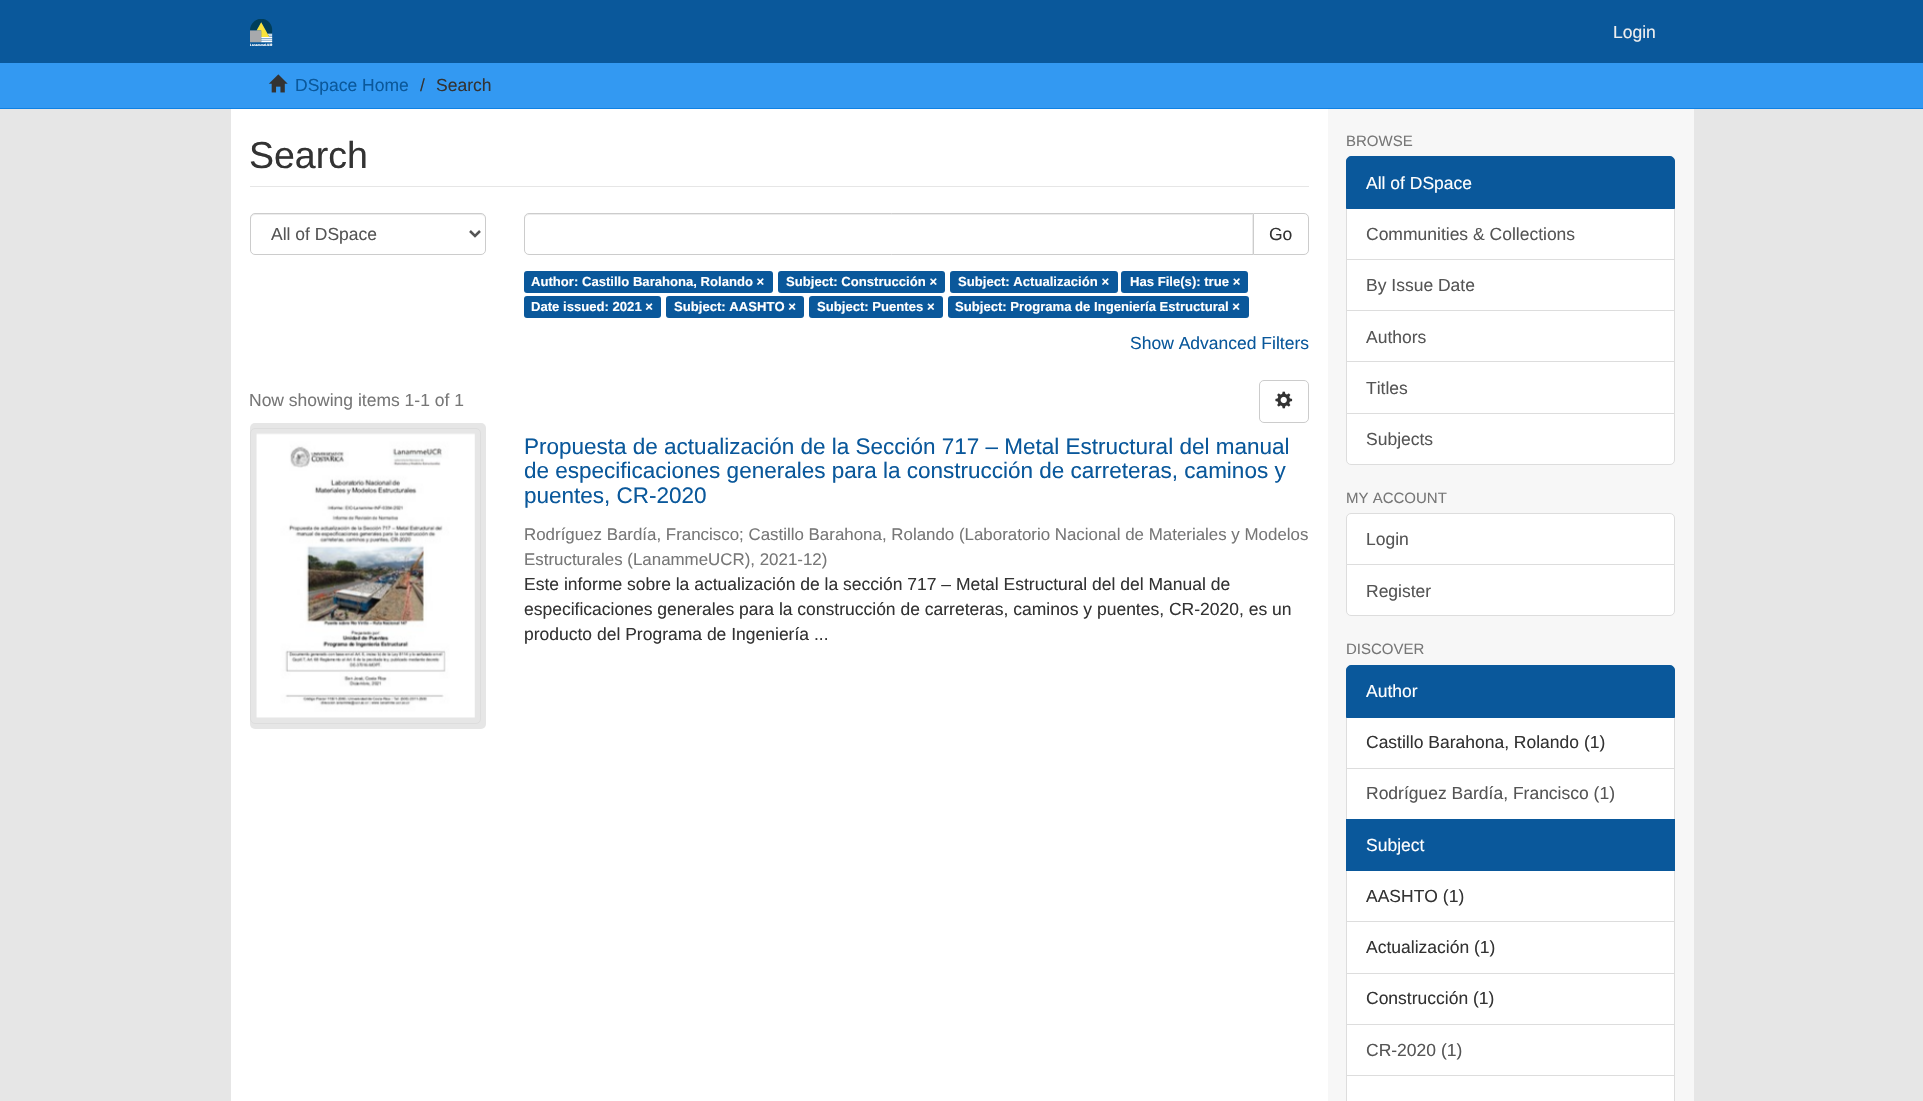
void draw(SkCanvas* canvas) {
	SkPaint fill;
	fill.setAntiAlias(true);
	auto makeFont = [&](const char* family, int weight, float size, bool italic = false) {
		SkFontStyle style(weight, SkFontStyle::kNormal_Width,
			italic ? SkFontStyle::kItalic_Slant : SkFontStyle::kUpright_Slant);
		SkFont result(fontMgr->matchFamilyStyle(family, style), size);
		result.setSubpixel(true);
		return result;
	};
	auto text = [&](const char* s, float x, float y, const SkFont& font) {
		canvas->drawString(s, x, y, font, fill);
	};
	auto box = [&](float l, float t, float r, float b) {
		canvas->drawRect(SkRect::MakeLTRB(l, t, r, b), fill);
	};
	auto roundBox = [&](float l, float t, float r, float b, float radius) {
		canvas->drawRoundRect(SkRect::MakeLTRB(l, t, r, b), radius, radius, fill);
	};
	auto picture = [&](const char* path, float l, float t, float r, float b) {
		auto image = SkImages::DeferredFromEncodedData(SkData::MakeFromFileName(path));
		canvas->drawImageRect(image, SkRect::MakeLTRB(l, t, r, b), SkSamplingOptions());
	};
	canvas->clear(0xFFE6E6E6);
	fill.setColor(0xFF0A589B);
	box(0, 0, 1923, 63);
	picture("image0.png", 250, 19, 273, 46);
	fill.setColor(0xFF3399F2);
	box(0, 63, 1923, 108);
	fill.setColor(0xFF0F81E3);
	box(0, 108, 1923, 109);
	picture("image1.png", 268, 74, 288, 93);
	fill.setColor(0xFFF7F7F7);
	box(1328, 109, 1694, 1101);
	fill.setColor(0xFFFFFFFF);
	box(231, 109, 1328, 1101);
	fill.setColor(0xFFE6E6E6);
	box(250, 186, 1309, 187);
	fill.setColor(0xFFECECEC);
	canvas->drawPath(SkPathBuilder().moveTo(255, 215).lineTo(481, 215).cubicTo(483, 215, 485, 217, 485, 219).cubicTo(485, 216, 484, 214, 481, 214).lineTo(255, 214).cubicTo(252, 214, 251, 216, 251, 219).cubicTo(251, 217, 253, 215, 255, 215).close().detach(), fill);
	fill.setStyle(SkPaint::kStroke_Style);
	fill.setStrokeWidth(1);
	fill.setColor(0xFFCCCCCC);
	canvas->drawRoundRect(SkRect::MakeLTRB(250.5f, 213.5f, 485.5f, 254.5f), 4.5f, 4.5f, fill);
	fill.setStrokeWidth(2.5f);
	fill.setColor(0xFF555555);
	canvas->drawPath(SkPathBuilder().moveTo(470, 231).lineTo(475, 236).lineTo(480, 231).detach(), fill);
	fill.setStrokeWidth(1);
	fill.setColor(0xFFCCCCCC);
	canvas->drawPath(SkPathBuilder().moveTo(1253.5f, 213.5f).lineTo(1304, 213.5f).cubicTo(1306.5f, 213.5f, 1308.5f, 215.5f, 1308.5f, 218).lineTo(1308.5f, 250).cubicTo(1308.5f, 252.5f, 1306.5f, 254.5f, 1304, 254.5f).lineTo(1253.5f, 254.5f).close().detach(), fill);
	fill.setStyle(SkPaint::kFill_Style);
	fill.setColor(0xFFFFFFFF);
	canvas->drawPath(SkPathBuilder().moveTo(529, 213).lineTo(1254, 213).lineTo(1254, 255).lineTo(529, 255).cubicTo(526, 255, 524, 253, 524, 250).lineTo(524, 218).cubicTo(524, 215, 526, 213, 529, 213).close().detach(), fill);
	fill.setColor(0xFFECECEC);
	canvas->drawPath(SkPathBuilder().moveTo(529, 215).lineTo(1252, 215).lineTo(1252, 254).lineTo(1253, 254).lineTo(1253, 214).lineTo(529, 214).cubicTo(527, 214, 525, 216, 525, 218).lineTo(525, 219).cubicTo(525, 217, 527, 215, 529, 215).close().detach(), fill);
	fill.setStyle(SkPaint::kStroke_Style);
	fill.setColor(0xFFCCCCCC);
	canvas->drawPath(SkPathBuilder().moveTo(529, 213.5f).lineTo(1253.5f, 213.5f).lineTo(1253.5f, 254.5f).lineTo(529, 254.5f).cubicTo(526.5f, 254.5f, 524.5f, 252.5f, 524.5f, 250).lineTo(524.5f, 218).cubicTo(524.5f, 215.5f, 526.5f, 213.5f, 529, 213.5f).close().detach(), fill);
	fill.setStyle(SkPaint::kFill_Style);
	fill.setColor(0xFF0A589B);
	roundBox(524, 271, 773, 293, 3);
	roundBox(778, 271, 945, 293, 3);
	roundBox(950, 271, 1118, 293, 3);
	roundBox(1121, 271, 1248, 293, 3);
	roundBox(524, 296, 661, 318, 3);
	roundBox(666, 296, 804, 318, 3);
	roundBox(809, 296, 943, 318, 3);
	roundBox(948, 296, 1249, 318, 3);
	fill.setStyle(SkPaint::kStroke_Style);
	fill.setColor(0xFFCCCCCC);
	canvas->drawRoundRect(SkRect::MakeLTRB(1259.5f, 380.5f, 1308.5f, 422.5f), 4.5f, 4.5f, fill);
	picture("image2.png", 1275, 391, 1293, 409);
	fill.setStyle(SkPaint::kFill_Style);
	fill.setColor(0xFFE6E6E6);
	roundBox(250, 423, 486, 729, 5);
	fill.setStyle(SkPaint::kStroke_Style);
	fill.setColor(0xFFDDDDDD);
	canvas->drawRoundRect(SkRect::MakeLTRB(250.5f, 428.5f, 480.5f, 723.5f), 4.5f, 4.5f, fill);
	picture("image3.png", 256, 433, 475, 718);
	fill.setStyle(SkPaint::kFill_Style);
	fill.setColor(0xFFFFFFFF);
	canvas->drawRect(SkRect::MakeLTRB(1346.5f, 208.5f, 1674.5f, 259.5f), fill);
	fill.setStyle(SkPaint::kStroke_Style);
	fill.setColor(0xFFDDDDDD);
	canvas->drawRect(SkRect::MakeLTRB(1346.5f, 208.5f, 1674.5f, 259.5f), fill);
	fill.setStyle(SkPaint::kFill_Style);
	fill.setColor(0xFF0A589B);
	canvas->drawPath(SkPathBuilder().moveTo(1351, 156.5f).lineTo(1670, 156.5f).cubicTo(1672.5f, 156.5f, 1674.5f, 158.5f, 1674.5f, 161).lineTo(1674.5f, 208.5f).lineTo(1346.5f, 208.5f).lineTo(1346.5f, 161).cubicTo(1346.5f, 158.5f, 1348.5f, 156.5f, 1351, 156.5f).close().detach(), fill);
	fill.setStyle(SkPaint::kStroke_Style);
	canvas->drawPath(SkPathBuilder().moveTo(1351, 156.5f).lineTo(1670, 156.5f).cubicTo(1672.5f, 156.5f, 1674.5f, 158.5f, 1674.5f, 161).lineTo(1674.5f, 208.5f).lineTo(1346.5f, 208.5f).lineTo(1346.5f, 161).cubicTo(1346.5f, 158.5f, 1348.5f, 156.5f, 1351, 156.5f).close().detach(), fill);
	fill.setStyle(SkPaint::kFill_Style);
	fill.setColor(0xFFFFFFFF);
	canvas->drawRect(SkRect::MakeLTRB(1346.5f, 259.5f, 1674.5f, 310.5f), fill);
	fill.setStyle(SkPaint::kStroke_Style);
	fill.setColor(0xFFDDDDDD);
	canvas->drawRect(SkRect::MakeLTRB(1346.5f, 259.5f, 1674.5f, 310.5f), fill);
	fill.setStyle(SkPaint::kFill_Style);
	fill.setColor(0xFFFFFFFF);
	box(1347, 311, 1674, 361);
	fill.setStyle(SkPaint::kStroke_Style);
	fill.setColor(0xFFDDDDDD);
	canvas->drawRect(SkRect::MakeLTRB(1346.5f, 310.5f, 1674.5f, 362.5f), fill);
	fill.setStyle(SkPaint::kFill_Style);
	fill.setColor(0xFFFFFFFF);
	canvas->drawRect(SkRect::MakeLTRB(1346.5f, 361.5f, 1674.5f, 413.5f), fill);
	fill.setStyle(SkPaint::kStroke_Style);
	fill.setColor(0xFFDDDDDD);
	canvas->drawRect(SkRect::MakeLTRB(1346.5f, 361.5f, 1674.5f, 413.5f), fill);
	fill.setStyle(SkPaint::kFill_Style);
	fill.setColor(0xFFFFFFFF);
	canvas->drawPath(SkPathBuilder().moveTo(1346.5f, 413.5f).lineTo(1674.5f, 413.5f).lineTo(1674.5f, 460).cubicTo(1674.5f, 462.5f, 1672.5f, 464.5f, 1670, 464.5f).lineTo(1351, 464.5f).cubicTo(1348.5f, 464.5f, 1346.5f, 462.5f, 1346.5f, 460).close().detach(), fill);
	fill.setStyle(SkPaint::kStroke_Style);
	fill.setColor(0xFFDDDDDD);
	canvas->drawPath(SkPathBuilder().moveTo(1346.5f, 413.5f).lineTo(1674.5f, 413.5f).lineTo(1674.5f, 460).cubicTo(1674.5f, 462.5f, 1672.5f, 464.5f, 1670, 464.5f).lineTo(1351, 464.5f).cubicTo(1348.5f, 464.5f, 1346.5f, 462.5f, 1346.5f, 460).close().detach(), fill);
	fill.setStyle(SkPaint::kFill_Style);
	fill.setColor(0xFFFFFFFF);
	canvas->drawPath(SkPathBuilder().moveTo(1351, 513.5f).lineTo(1670, 513.5f).cubicTo(1672.5f, 513.5f, 1674.5f, 515.5f, 1674.5f, 518).lineTo(1674.5f, 564.5f).lineTo(1346.5f, 564.5f).lineTo(1346.5f, 518).cubicTo(1346.5f, 515.5f, 1348.5f, 513.5f, 1351, 513.5f).close().detach(), fill);
	fill.setStyle(SkPaint::kStroke_Style);
	fill.setColor(0xFFDDDDDD);
	canvas->drawPath(SkPathBuilder().moveTo(1351, 513.5f).lineTo(1670, 513.5f).cubicTo(1672.5f, 513.5f, 1674.5f, 515.5f, 1674.5f, 518).lineTo(1674.5f, 564.5f).lineTo(1346.5f, 564.5f).lineTo(1346.5f, 518).cubicTo(1346.5f, 515.5f, 1348.5f, 513.5f, 1351, 513.5f).close().detach(), fill);
	fill.setStyle(SkPaint::kFill_Style);
	fill.setColor(0xFFFFFFFF);
	canvas->drawPath(SkPathBuilder().moveTo(1346.5f, 564.5f).lineTo(1674.5f, 564.5f).lineTo(1674.5f, 611).cubicTo(1674.5f, 613.5f, 1672.5f, 615.5f, 1670, 615.5f).lineTo(1351, 615.5f).cubicTo(1348.5f, 615.5f, 1346.5f, 613.5f, 1346.5f, 611).close().detach(), fill);
	fill.setStyle(SkPaint::kStroke_Style);
	fill.setColor(0xFFDDDDDD);
	canvas->drawPath(SkPathBuilder().moveTo(1346.5f, 564.5f).lineTo(1674.5f, 564.5f).lineTo(1674.5f, 611).cubicTo(1674.5f, 613.5f, 1672.5f, 615.5f, 1670, 615.5f).lineTo(1351, 615.5f).cubicTo(1348.5f, 615.5f, 1346.5f, 613.5f, 1346.5f, 611).close().detach(), fill);
	fill.setStyle(SkPaint::kFill_Style);
	fill.setColor(0xFFFFFFFF);
	box(1347, 718, 1674, 768);
	fill.setStyle(SkPaint::kStroke_Style);
	fill.setColor(0xFFDDDDDD);
	canvas->drawRect(SkRect::MakeLTRB(1346.5f, 716.5f, 1674.5f, 768.5f), fill);
	fill.setStyle(SkPaint::kFill_Style);
	fill.setColor(0xFF0A589B);
	canvas->drawPath(SkPathBuilder().moveTo(1351, 665.5f).lineTo(1670, 665.5f).cubicTo(1672.5f, 665.5f, 1674.5f, 667.5f, 1674.5f, 670).lineTo(1674.5f, 717.5f).lineTo(1346.5f, 717.5f).lineTo(1346.5f, 670).cubicTo(1346.5f, 667.5f, 1348.5f, 665.5f, 1351, 665.5f).close().detach(), fill);
	fill.setStyle(SkPaint::kStroke_Style);
	canvas->drawPath(SkPathBuilder().moveTo(1351, 665.5f).lineTo(1670, 665.5f).cubicTo(1672.5f, 665.5f, 1674.5f, 667.5f, 1674.5f, 670).lineTo(1674.5f, 717.5f).lineTo(1346.5f, 717.5f).lineTo(1346.5f, 670).cubicTo(1346.5f, 667.5f, 1348.5f, 665.5f, 1351, 665.5f).close().detach(), fill);
	fill.setStyle(SkPaint::kFill_Style);
	fill.setColor(0xFFFFFFFF);
	canvas->drawRect(SkRect::MakeLTRB(1346.5f, 768.5f, 1674.5f, 819.5f), fill);
	fill.setStyle(SkPaint::kStroke_Style);
	fill.setColor(0xFFDDDDDD);
	canvas->drawRect(SkRect::MakeLTRB(1346.5f, 768.5f, 1674.5f, 819.5f), fill);
	fill.setStyle(SkPaint::kFill_Style);
	fill.setColor(0xFFFFFFFF);
	box(1347, 871, 1674, 921);
	fill.setStyle(SkPaint::kStroke_Style);
	fill.setColor(0xFFDDDDDD);
	canvas->drawRect(SkRect::MakeLTRB(1346.5f, 870.5f, 1674.5f, 922.5f), fill);
	fill.setStyle(SkPaint::kFill_Style);
	fill.setColor(0xFF0A589B);
	box(1346, 819, 1675, 871);
	fill.setColor(0xFFFFFFFF);
	canvas->drawRect(SkRect::MakeLTRB(1346.5f, 921.5f, 1674.5f, 973.5f), fill);
	fill.setStyle(SkPaint::kStroke_Style);
	fill.setColor(0xFFDDDDDD);
	canvas->drawRect(SkRect::MakeLTRB(1346.5f, 921.5f, 1674.5f, 973.5f), fill);
	fill.setStyle(SkPaint::kFill_Style);
	fill.setColor(0xFFFFFFFF);
	canvas->drawRect(SkRect::MakeLTRB(1346.5f, 973.5f, 1674.5f, 1024.5f), fill);
	fill.setStyle(SkPaint::kStroke_Style);
	fill.setColor(0xFFDDDDDD);
	canvas->drawRect(SkRect::MakeLTRB(1346.5f, 973.5f, 1674.5f, 1024.5f), fill);
	fill.setStyle(SkPaint::kFill_Style);
	fill.setColor(0xFFFFFFFF);
	canvas->drawRect(SkRect::MakeLTRB(1346.5f, 1024.5f, 1674.5f, 1075.5f), fill);
	fill.setStyle(SkPaint::kStroke_Style);
	fill.setColor(0xFFDDDDDD);
	canvas->drawRect(SkRect::MakeLTRB(1346.5f, 1024.5f, 1674.5f, 1075.5f), fill);
	fill.setStyle(SkPaint::kFill_Style);
	fill.setColor(0xFFFFFFFF);
	canvas->drawRect(SkRect::MakeLTRB(1346.5f, 1075.5f, 1674.5f, 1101.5f), fill);
	fill.setStyle(SkPaint::kStroke_Style);
	fill.setColor(0xFFDDDDDD);
	canvas->drawRect(SkRect::MakeLTRB(1346.5f, 1075.5f, 1674.5f, 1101.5f), fill);
	auto font1 = makeFont("Liberation Sans", 400, 17.5f);
	fill.setStyle(SkPaint::kFill_Style);
	fill.setColor(0xFFEEEEEE);
	text("Login", 1613, 38, font1);
	fill.setColor(0xFF0A589B);
	text("DSpace Home", 295, 91, font1);
	fill.setColor(0xFF333333);
	text("/", 420, 91, font1);
	text("Search", 436, 91, font1);
	auto font2 = makeFont("Liberation Sans", 400, 37.5f);
	text("Search", 249, 168, font2);
	fill.setColor(0xFF555555);
	text("All of DSpace", 271, 240, font1);
	fill.setColor(0xFF333333);
	text("Go", 1269, 240, font1);
	auto font3 = makeFont("Liberation Sans", 700, 13.1f);
	fill.setColor(0xFFFFFFFF);
	text("Author: Castillo Barahona, Rolando ×", 531, 286, font3);
	text("Subject: Construcción ×", 786, 286, font3);
	text("Subject: Actualización ×", 958, 286, font3);
	text("Has File(s): true ×", 1130, 286, font3);
	text("Date issued: 2021 ×", 531, 311, font3);
	text("Subject: AASHTO ×", 674, 311, font3);
	text("Subject: Puentes ×", 817, 311, font3);
	text("Subject: Programa de Ingeniería Estructural ×", 955, 311, font3);
	fill.setColor(0xFF0A589B);
	text("Show Advanced Filters", 1130, 349, font1);
	fill.setColor(0xFF777777);
	text("Now showing items 1-1 of 1", 249, 406, font1);
	auto font4 = makeFont("Liberation Sans", 400, 22.5f);
	fill.setColor(0xFF0A589B);
	text("Propuesta de actualización de la Sección 717 – Metal Estructural del manual", 524, 454, font4);
	text("de especificaciones generales para la construcción de carreteras, caminos y", 524, 478, font4);
	text("puentes, CR-2020", 524, 503, font4);
	auto font5 = makeFont("Liberation Sans", 400, 16.9f);
	fill.setColor(0xFF777777);
	text("Rodríguez Bardía, Francisco; Castillo Barahona, Rolando (Laboratorio Nacional de Materiales y Modelos", 524, 540, font5);
	text("Estructurales (LanammeUCR), 2021-12)", 524, 565, font5);
	fill.setColor(0xFF333333);
	text("Este informe sobre la actualización de la sección 717 – Metal Estructural del del Manual de", 524, 590, font1);
	text("especificaciones generales para la construcción de carreteras, caminos y puentes, CR-2020, es un", 524, 615, font1);
	text("producto del Programa de Ingeniería ...", 524, 640, font1);
	auto font6 = makeFont("Liberation Sans", 400, 15);
	fill.setColor(0xFF777777);
	text("BROWSE", 1346, 146, font6);
	fill.setColor(0xFFFFFFFF);
	text("All of DSpace", 1366, 189, font1);
	fill.setColor(0xFF555555);
	text("Communities & Collections", 1366, 240, font1);
	text("By Issue Date", 1366, 291, font1);
	text("Authors", 1366, 343, font1);
	text("Titles", 1366, 394, font1);
	text("Subjects", 1366, 445, font1);
	fill.setColor(0xFF777777);
	text("MY ACCOUNT", 1346, 503, font6);
	fill.setColor(0xFF555555);
	text("Login", 1366, 545, font1);
	text("Register", 1366, 597, font1);
	fill.setColor(0xFF777777);
	text("DISCOVER", 1346, 654, font6);
	fill.setColor(0xFFFFFFFF);
	text("Author", 1366, 697, font1);
	fill.setColor(0xFF333333);
	text("Castillo Barahona, Rolando (1)", 1366, 748, font1);
	fill.setColor(0xFF555555);
	text("Rodríguez Bardía, Francisco (1)", 1366, 799, font1);
	fill.setColor(0xFFFFFFFF);
	text("Subject", 1366, 851, font1);
	fill.setColor(0xFF333333);
	text("AASHTO (1)", 1366, 902, font1);
	text("Actualización (1)", 1366, 953, font1);
	text("Construcción (1)", 1366, 1004, font1);
	fill.setColor(0xFF555555);
	text("CR-2020 (1)", 1366, 1056, font1);
}
